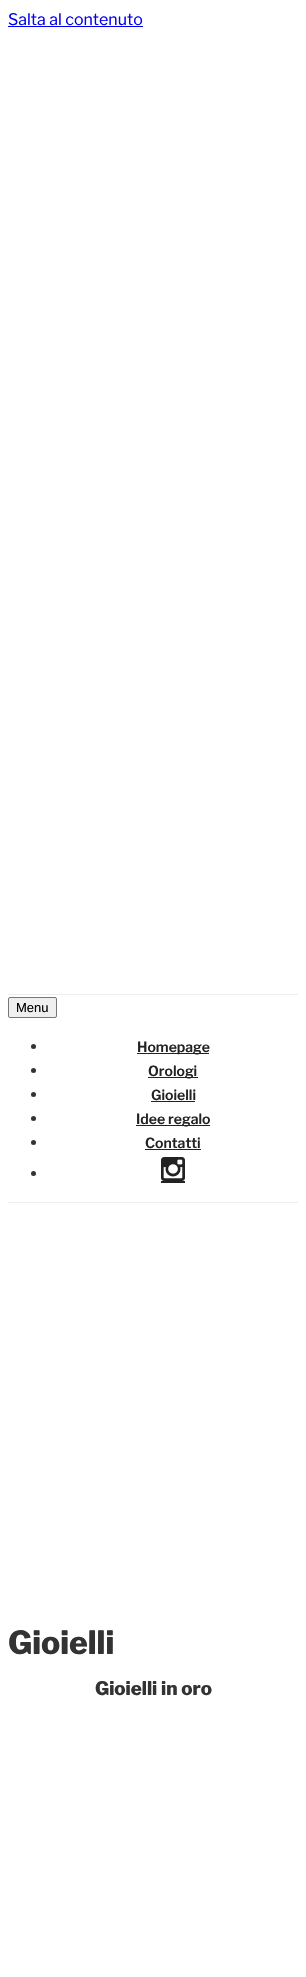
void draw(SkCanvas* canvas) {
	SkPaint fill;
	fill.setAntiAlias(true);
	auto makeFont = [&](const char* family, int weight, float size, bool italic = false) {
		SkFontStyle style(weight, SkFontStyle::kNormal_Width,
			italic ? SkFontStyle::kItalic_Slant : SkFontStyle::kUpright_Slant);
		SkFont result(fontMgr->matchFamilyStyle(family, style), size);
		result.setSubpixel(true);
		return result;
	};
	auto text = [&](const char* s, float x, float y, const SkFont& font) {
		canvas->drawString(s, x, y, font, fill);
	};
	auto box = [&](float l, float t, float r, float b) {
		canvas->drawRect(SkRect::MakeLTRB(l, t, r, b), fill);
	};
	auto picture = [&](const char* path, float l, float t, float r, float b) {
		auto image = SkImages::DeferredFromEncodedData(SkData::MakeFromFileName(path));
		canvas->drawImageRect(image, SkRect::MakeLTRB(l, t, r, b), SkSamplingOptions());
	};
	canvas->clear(0xFFFFFFFF);
	fill.setColor(0xFF0000EE);
	box(8, 26, 143, 27);
	fill.setColor(0xFFEEEEEE);
	box(8, 994, 298, 995);
	box(8, 1202, 298, 1203);
	fill.setColor(0xFFEFEFEF);
	canvas->drawRoundRect(SkRect::MakeLTRB(8.5f, 997.5f, 56.5f, 1017.5f), 1.5f, 1.5f, fill);
	fill.setStyle(SkPaint::kStroke_Style);
	fill.setStrokeWidth(1);
	fill.setColor(0xFF767676);
	canvas->drawRoundRect(SkRect::MakeLTRB(8.5f, 997.5f, 56.5f, 1017.5f), 1.5f, 1.5f, fill);
	fill.setStyle(SkPaint::kFill_Style);
	fill.setColor(0xFF333333);
	canvas->drawCircle(33.5f, 1046.5f, 2.5f, fill);
	fill.setColor(0xFF222222);
	box(137, 1053, 209, 1054);
	fill.setColor(0xFF333333);
	canvas->drawCircle(33.5f, 1070.5f, 2.5f, fill);
	fill.setColor(0xFF222222);
	box(148, 1077, 198, 1078);
	fill.setColor(0xFF333333);
	canvas->drawCircle(33.5f, 1094.5f, 2.5f, fill);
	fill.setColor(0xFF222222);
	box(151, 1101, 195, 1102);
	fill.setColor(0xFF333333);
	canvas->drawCircle(33.5f, 1118.5f, 2.5f, fill);
	fill.setColor(0xFF222222);
	box(136, 1125, 210, 1126);
	fill.setColor(0xFF333333);
	canvas->drawCircle(33.5f, 1142.5f, 2.5f, fill);
	fill.setColor(0xFF222222);
	box(145, 1149, 201, 1150);
	fill.setColor(0xFF333333);
	canvas->drawCircle(33.5f, 1173.5f, 2.5f, fill);
	fill.setColor(0xFF222222);
	box(161, 1181, 185, 1183);
	picture("image0.png", 161, 1157, 185, 1181);
	auto font1 = makeFont("Libre Franklin", 400, 16);
	fill.setColor(0xFF0000EE);
	text("Salta al contenuto", 8, 25, font1);
	auto font2 = makeFont("Liberation Sans", 400, 13);
	fill.setColor(0xFF000000);
	text("Menu", 16, 1012, font2);
	auto font3 = makeFont("Libre Franklin", 600, 14);
	fill.setColor(0xFF222222);
	text("Homepage", 137, 1052, font3);
	text("Orologi", 148, 1076, font3);
	text("Gioielli", 151, 1100, font3);
	text("Idee regalo", 136, 1124, font3);
	text("Contatti", 145, 1148, font3);
	auto font4 = makeFont("Libre Franklin", 800, 32);
	fill.setColor(0xFF333333);
	text("Gioielli", 8, 1654, font4);
	auto font5 = makeFont("Libre Franklin", 800, 18.75f);
	text("Gioielli in oro", 95, 1695, font5);
}
